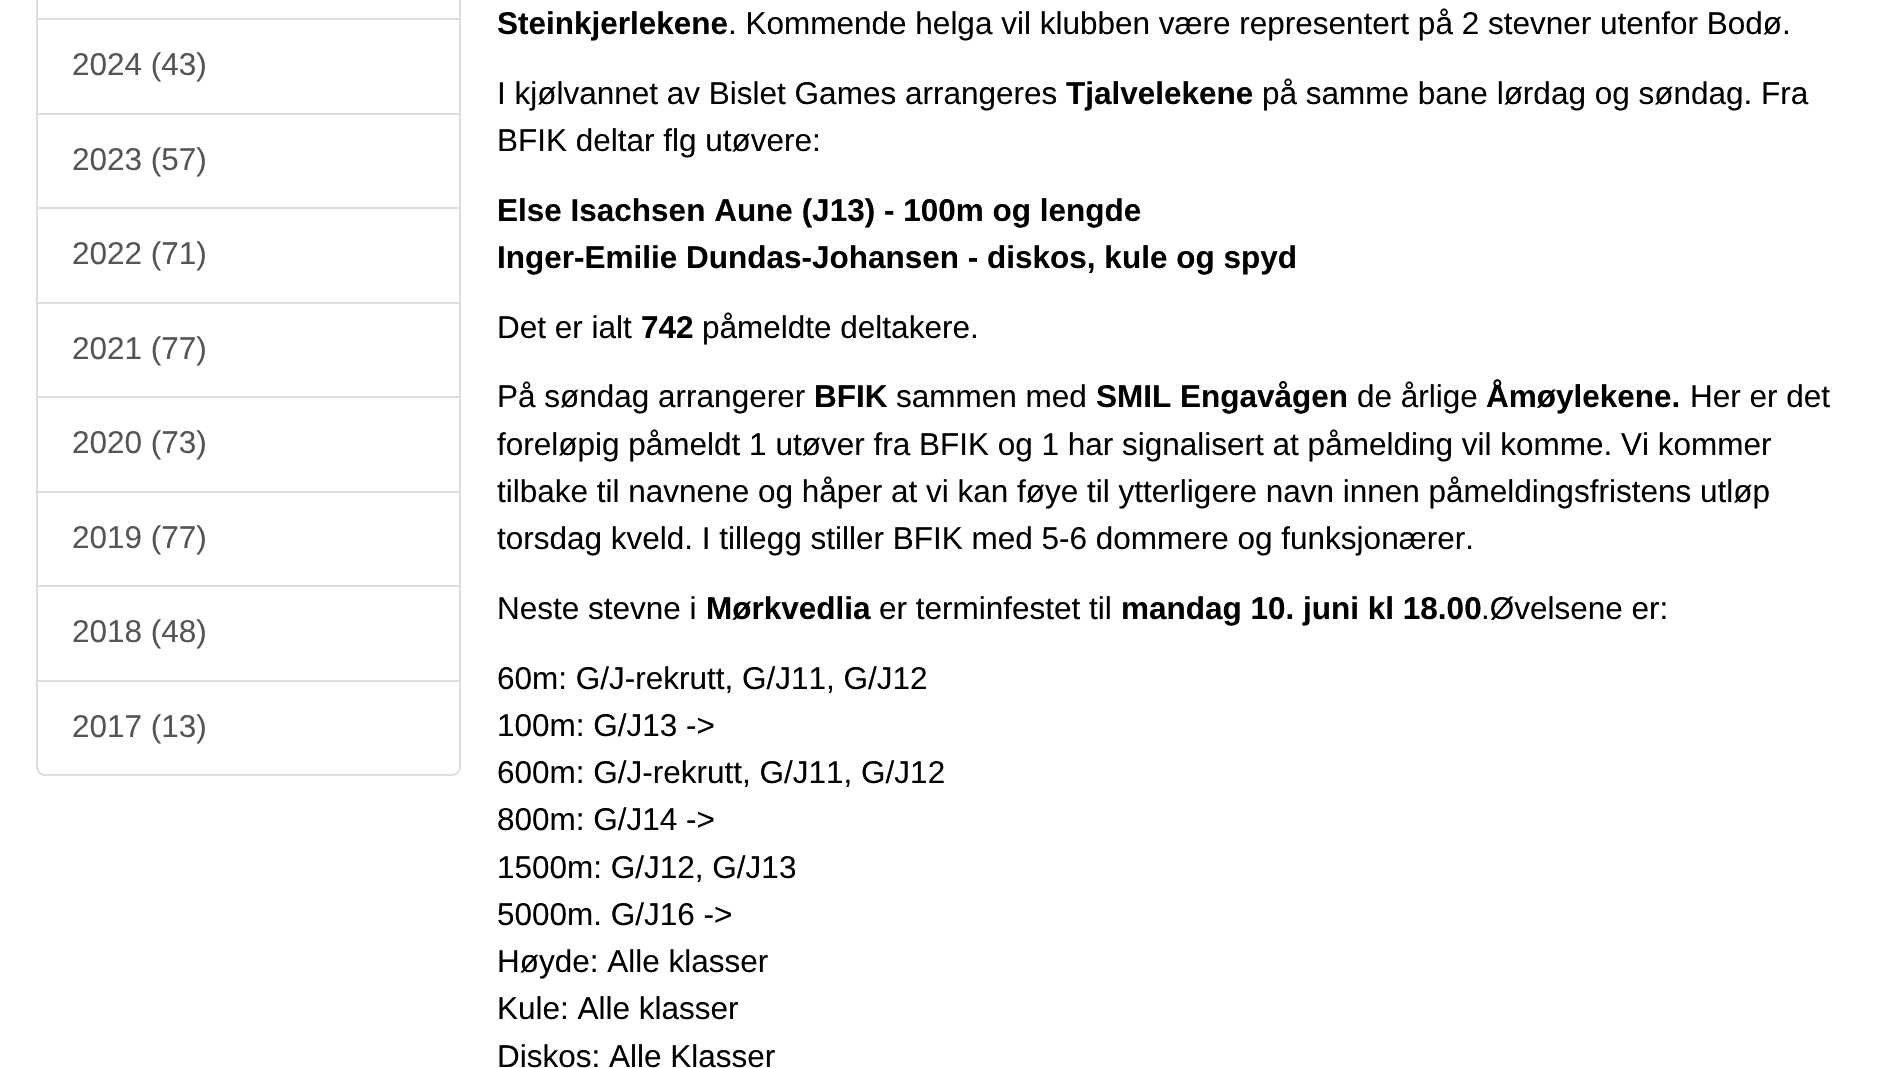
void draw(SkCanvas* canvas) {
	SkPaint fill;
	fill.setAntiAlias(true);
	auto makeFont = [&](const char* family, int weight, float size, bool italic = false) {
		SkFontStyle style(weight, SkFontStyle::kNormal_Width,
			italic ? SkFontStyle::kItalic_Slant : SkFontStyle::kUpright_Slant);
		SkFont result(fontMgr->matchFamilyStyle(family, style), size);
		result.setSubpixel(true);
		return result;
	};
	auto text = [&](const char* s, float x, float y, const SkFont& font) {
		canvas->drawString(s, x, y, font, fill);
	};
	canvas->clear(0xFFFFFFFF);
	fill.setStyle(SkPaint::kStroke_Style);
	fill.setStrokeWidth(2);
	fill.setColor(0xFFDDDDDD);
	canvas->drawRect(SkRect::MakeLTRB(37, -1, 460, 19), fill);
	canvas->drawRect(SkRect::MakeLTRB(37, 19, 460, 114), fill);
	canvas->drawRect(SkRect::MakeLTRB(37, 114, 460, 208), fill);
	canvas->drawRect(SkRect::MakeLTRB(37, 208, 460, 303), fill);
	canvas->drawRect(SkRect::MakeLTRB(37, 303, 460, 397), fill);
	canvas->drawRect(SkRect::MakeLTRB(37, 397, 460, 492), fill);
	canvas->drawRect(SkRect::MakeLTRB(37, 492, 460, 586), fill);
	canvas->drawRect(SkRect::MakeLTRB(37, 586, 460, 681), fill);
	fill.setStyle(SkPaint::kFill_Style);
	fill.setColor(0xFFFFFFFF);
	canvas->drawPath(SkPathBuilder().moveTo(37, 681).lineTo(460, 681).lineTo(460, 767).cubicTo(460, 771.5f, 456.5f, 775, 452, 775).lineTo(45, 775).cubicTo(40.5f, 775, 37, 771.5f, 37, 767).close().detach(), fill);
	fill.setStyle(SkPaint::kStroke_Style);
	fill.setColor(0xFFDDDDDD);
	canvas->drawPath(SkPathBuilder().moveTo(37, 681).lineTo(460, 681).lineTo(460, 767).cubicTo(460, 771.5f, 456.5f, 775, 452, 775).lineTo(45, 775).cubicTo(40.5f, 775, 37, 771.5f, 37, 767).close().detach(), fill);
	auto font1 = makeFont("Liberation Sans", 400, 31.5f);
	fill.setStyle(SkPaint::kFill_Style);
	fill.setColor(0xFF555555);
	text("2024 (43)", 72, 75, font1);
	text("2023 (57)", 72, 170, font1);
	text("2022 (71)", 72, 264, font1);
	text("2021 (77)", 72, 359, font1);
	text("2020 (73)", 72, 453, font1);
	text("2019 (77)", 72, 548, font1);
	text("2018 (48)", 72, 642, font1);
	text("2017 (13)", 72, 737, font1);
	auto font2 = makeFont("Liberation Sans", 700, 31.5f);
	fill.setColor(0xFF000000);
	text("Steinkjerlekene", 497, 34, font2);
	text(". Kommende helga vil klubben være representert på 2 stevner utenfor Bodø.", 728, 34, font1);
	text("I kjølvannet av Bislet Games arrangeres", 497, 104, font1);
	text("Tjalvelekene", 1066, 104, font2);
	text("på samme bane lørdag og søndag. Fra", 1262, 104, font1);
	text("BFIK deltar flg utøvere:", 497, 151, font1);
	text("Else Isachsen Aune (J13) - 100m og lengde", 497, 221, font2);
	text("Inger-Emilie Dundas-Johansen - diskos, kule og spyd", 497, 268, font2);
	text("Det er ialt", 497, 338, font1);
	text("742", 641, 338, font2);
	text("påmeldte deltakere.", 702, 338, font1);
	text("På søndag arrangerer", 497, 407, font1);
	text("BFIK", 814, 407, font2);
	text("sammen med", 896, 407, font1);
	text("SMIL Engavågen", 1096, 407, font2);
	text("de årlige", 1357, 407, font1);
	text("Åmøylekene.", 1486, 407, font2);
	text("Her er det", 1690, 407, font1);
	text("foreløpig påmeldt 1 utøver fra BFIK og 1 har signalisert at påmelding vil komme. Vi kommer", 497, 455, font1);
	text("tilbake til navnene og håper at vi kan føye til ytterligere navn innen påmeldingsfristens utløp", 497, 502, font1);
	text("torsdag kveld. I tillegg stiller BFIK med 5-6 dommere og funksjonærer.", 497, 549, font1);
	text("Neste stevne i", 497, 619, font1);
	text("Mørkvedlia", 706, 619, font2);
	text("er terminfestet til", 879, 619, font1);
	text("mandag 10. juni kl 18.00", 1121, 619, font2);
	text(".Øvelsene er:", 1481, 619, font1);
	text("60m: G/J-rekrutt, G/J11, G/J12", 497, 689, font1);
	text("100m: G/J13 ->", 497, 736, font1);
	text("600m: G/J-rekrutt, G/J11, G/J12", 497, 783, font1);
	text("800m: G/J14 ->", 497, 830, font1);
	text("1500m: G/J12, G/J13", 497, 878, font1);
	text("5000m. G/J16 ->", 497, 925, font1);
	text("Høyde: Alle klasser", 497, 972, font1);
	text("Kule: Alle klasser", 497, 1019, font1);
	text("Diskos: Alle Klasser", 497, 1067, font1);
}
